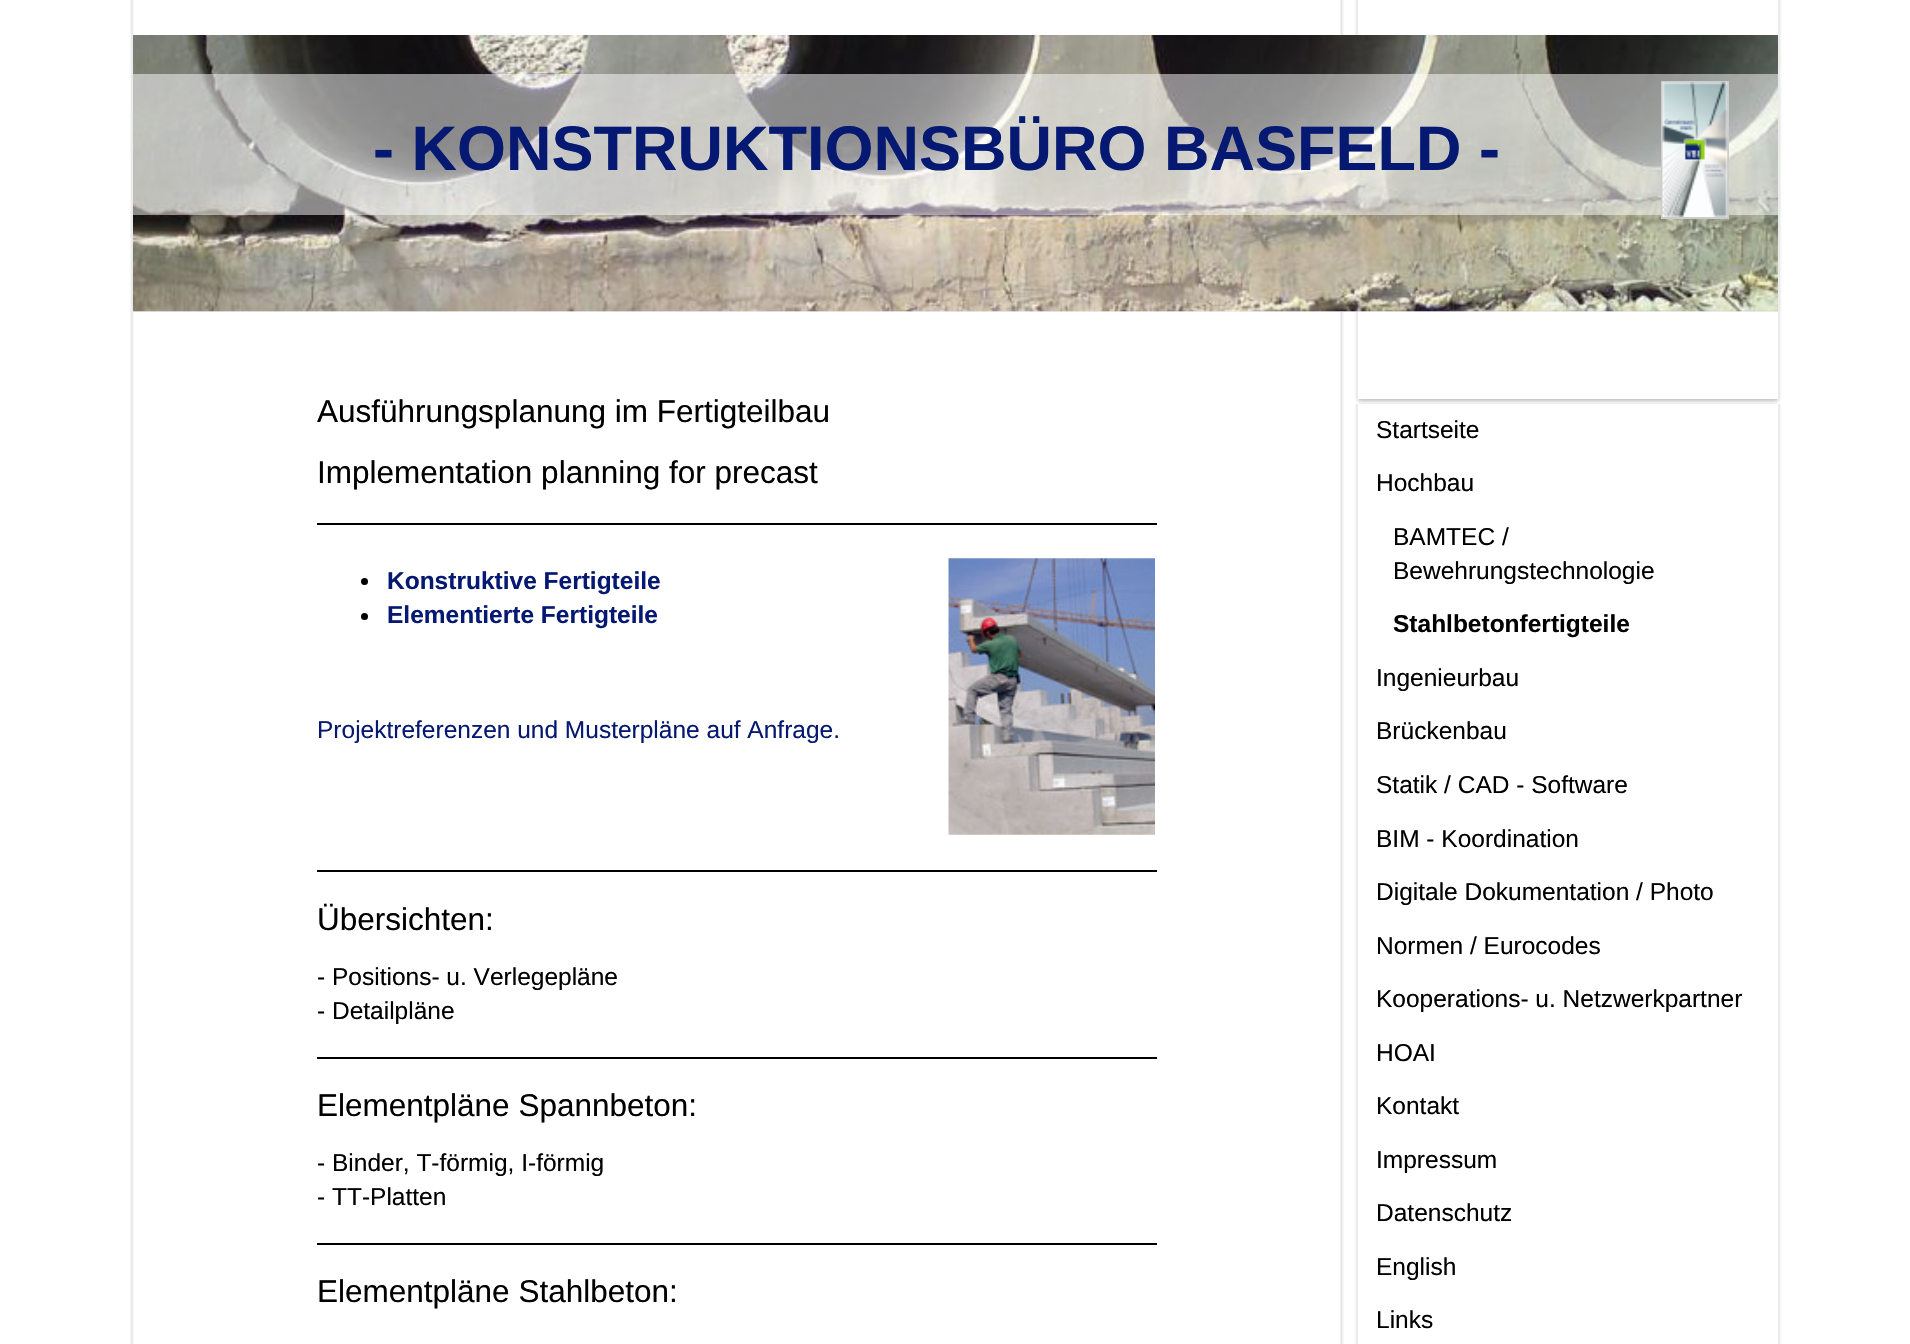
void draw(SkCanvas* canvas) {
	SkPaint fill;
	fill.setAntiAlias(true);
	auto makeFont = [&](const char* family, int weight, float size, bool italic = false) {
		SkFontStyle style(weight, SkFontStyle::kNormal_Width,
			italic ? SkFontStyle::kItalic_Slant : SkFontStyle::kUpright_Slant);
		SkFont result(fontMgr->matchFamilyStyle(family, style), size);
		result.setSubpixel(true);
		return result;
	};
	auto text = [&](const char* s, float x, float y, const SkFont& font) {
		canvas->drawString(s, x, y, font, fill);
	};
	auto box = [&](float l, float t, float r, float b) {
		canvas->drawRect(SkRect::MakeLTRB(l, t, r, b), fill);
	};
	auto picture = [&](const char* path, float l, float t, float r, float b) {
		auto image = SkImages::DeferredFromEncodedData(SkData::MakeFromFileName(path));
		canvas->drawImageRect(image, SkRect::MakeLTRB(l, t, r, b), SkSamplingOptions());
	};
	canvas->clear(0xFFFFFFFF);
	picture("image0.png", 130, 0, 1344, 1344);
	picture("image1.png", 1355, 0, 1782, 312);
	fill.setColor(0xFFFFFFFF);
	box(1358, 0, 1778, 35);
	fill.setColor(0xFFEEEEEE);
	box(133, 311, 1778, 312);
	picture("image2.png", 133, 35, 1778, 312);
	fill.setColor(0x80FFFFFF);
	box(133, 74, 1778, 215);
	fill.setStyle(SkPaint::kStroke_Style);
	fill.setStrokeWidth(2);
	fill.setColor(0xFFCCCCCC);
	canvas->drawRect(SkRect::MakeLTRB(1662, 82, 1728, 218), fill);
	picture("image3.png", 1662, 82, 1728, 217);
	fill.setStyle(SkPaint::kFill_Style);
	fill.setColor(0xFF000000);
	box(317, 523, 1157, 525);
	canvas->drawCircle(364.5f, 581.5f, 3.5f, fill);
	canvas->drawCircle(364.5f, 616.5f, 3.5f, fill);
	picture("image4.png", 948, 558, 1155, 835);
	box(317, 870, 1157, 872);
	box(317, 1057, 1157, 1059);
	box(317, 1243, 1157, 1245);
	fill.setColor(0x08000000);
	box(1359, 310, 1778, 311);
	picture("image5.png", 1355, 399, 1781, 404);
	picture("image6.png", 1355, 311, 1781, 399);
	fill.setColor(0xFFFFFFFF);
	box(1358, 312, 1778, 399);
	fill.setColor(0x08000000);
	box(1358, 403, 1778, 404);
	picture("image7.png", 1355, 404, 1781, 1344);
	fill.setColor(0xFFFFFFFF);
	box(1358, 404, 1778, 1344);
	auto font1 = makeFont("Liberation Sans", 700, 63);
	fill.setColor(0xFF051972);
	text("- KONSTRUKTIONSBÜRO BASFELD -", 373, 170, font1);
	auto font2 = makeFont("Liberation Sans", 400, 31.5f);
	fill.setColor(0xFF000000);
	text("Ausführungsplanung im Fertigteilbau", 317, 422, font2);
	text("Implementation planning for precast", 317, 483, font2);
	auto font3 = makeFont("Liberation Sans", 700, 24.5f);
	fill.setColor(0xFF051972);
	text("Konstruktive Fertigteile", 387, 589, font3);
	text("Elementierte Fertigteile", 387, 623, font3);
	auto font4 = makeFont("Liberation Sans", 400, 24.5f);
	text("Projektreferenzen und Musterpläne auf Anfrage.", 317, 738, font4);
	fill.setColor(0xFF000000);
	text("Übersichten:", 317, 930, font2);
	text("- Positions- u. Verlegepläne", 317, 985, font4);
	text("- Detailpläne", 317, 1019, font4);
	text("Elementpläne Spannbeton:", 317, 1116, font2);
	text("- Binder, T-förmig, I-förmig", 317, 1171, font4);
	text("- TT-Platten", 317, 1205, font4);
	text("Elementpläne Stahlbeton:", 317, 1302, font2);
	text("Startseite", 1376, 438, font4);
	text("Hochbau", 1376, 491, font4);
	text("BAMTEC /", 1393, 545, font4);
	text("Bewehrungstechnologie", 1393, 579, font4);
	text("Stahlbetonfertigteile", 1393, 632, font3);
	text("Ingenieurbau", 1376, 686, font4);
	text("Brückenbau", 1376, 739, font4);
	text("Statik / CAD - Software", 1376, 793, font4);
	text("BIM - Koordination", 1376, 847, font4);
	text("Digitale Dokumentation / Photo", 1376, 900, font4);
	text("Normen / Eurocodes", 1376, 954, font4);
	text("Kooperations- u. Netzwerkpartner", 1376, 1007, font4);
	text("HOAI", 1376, 1061, font4);
	text("Kontakt", 1376, 1114, font4);
	text("Impressum", 1376, 1168, font4);
	text("Datenschutz", 1376, 1221, font4);
	text("English", 1376, 1275, font4);
	text("Links", 1376, 1328, font4);
}
